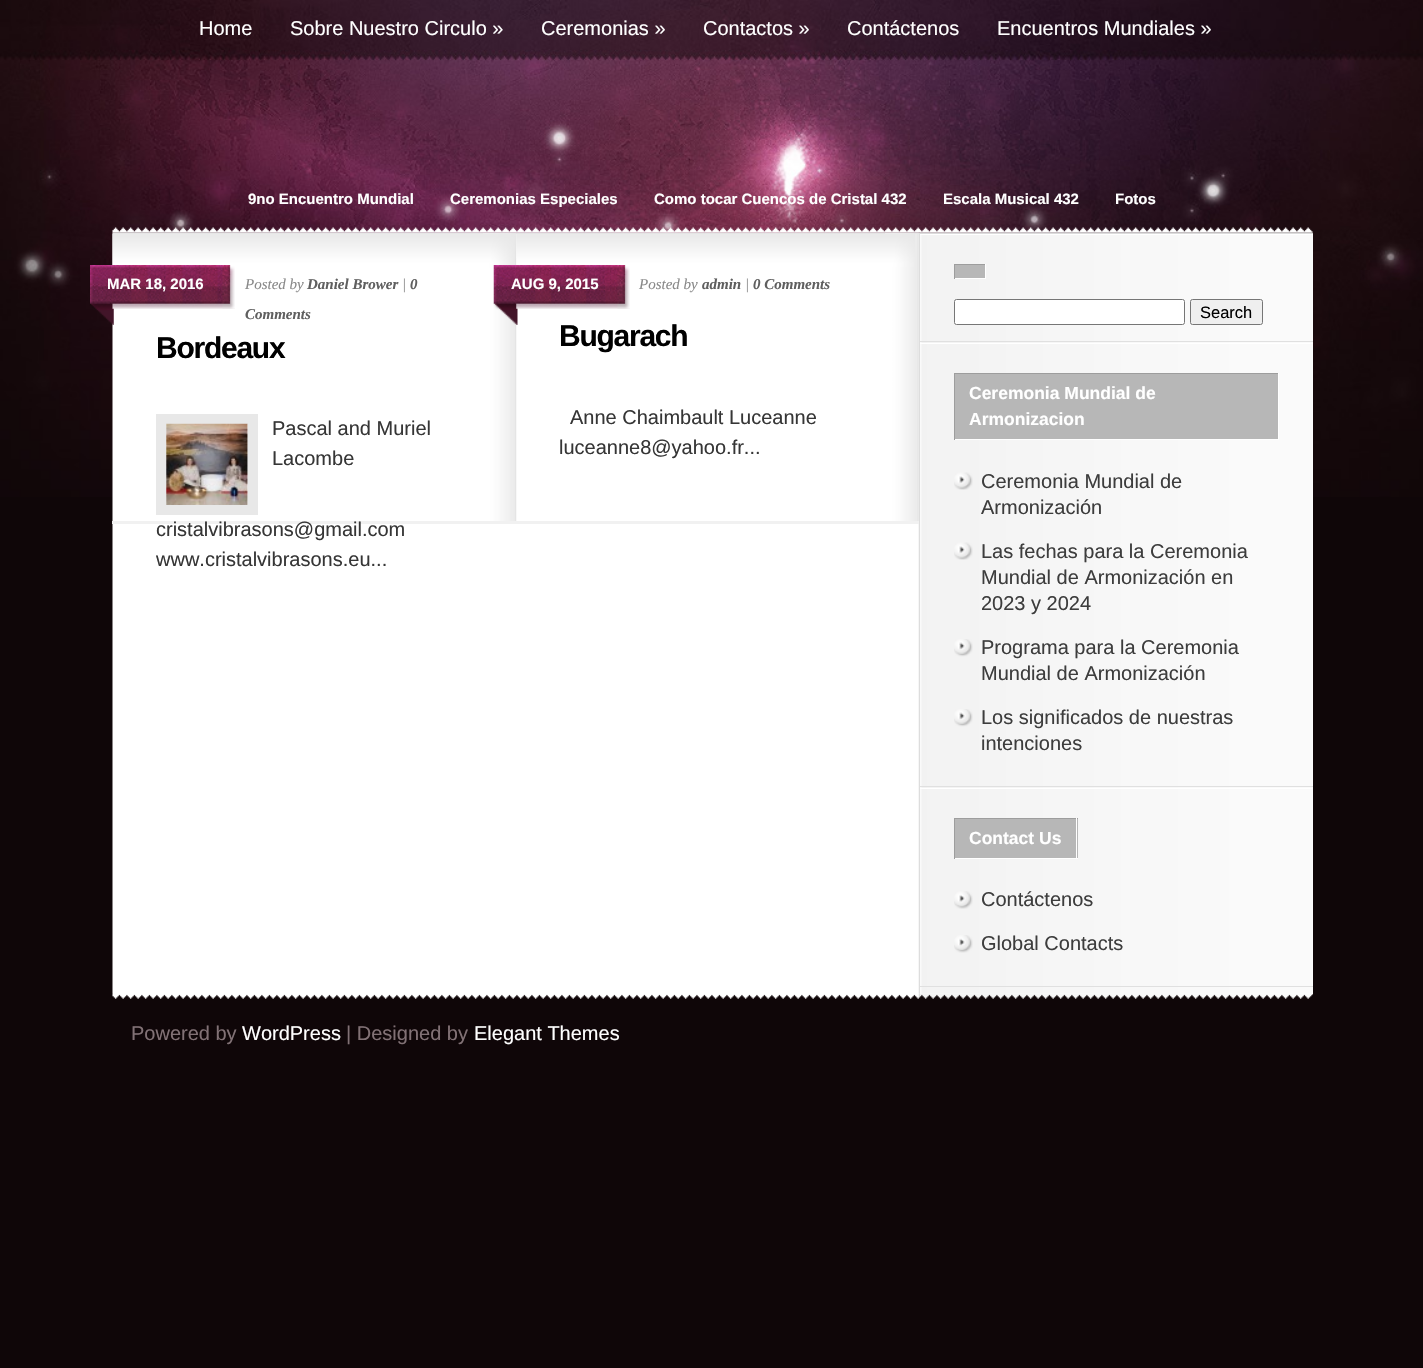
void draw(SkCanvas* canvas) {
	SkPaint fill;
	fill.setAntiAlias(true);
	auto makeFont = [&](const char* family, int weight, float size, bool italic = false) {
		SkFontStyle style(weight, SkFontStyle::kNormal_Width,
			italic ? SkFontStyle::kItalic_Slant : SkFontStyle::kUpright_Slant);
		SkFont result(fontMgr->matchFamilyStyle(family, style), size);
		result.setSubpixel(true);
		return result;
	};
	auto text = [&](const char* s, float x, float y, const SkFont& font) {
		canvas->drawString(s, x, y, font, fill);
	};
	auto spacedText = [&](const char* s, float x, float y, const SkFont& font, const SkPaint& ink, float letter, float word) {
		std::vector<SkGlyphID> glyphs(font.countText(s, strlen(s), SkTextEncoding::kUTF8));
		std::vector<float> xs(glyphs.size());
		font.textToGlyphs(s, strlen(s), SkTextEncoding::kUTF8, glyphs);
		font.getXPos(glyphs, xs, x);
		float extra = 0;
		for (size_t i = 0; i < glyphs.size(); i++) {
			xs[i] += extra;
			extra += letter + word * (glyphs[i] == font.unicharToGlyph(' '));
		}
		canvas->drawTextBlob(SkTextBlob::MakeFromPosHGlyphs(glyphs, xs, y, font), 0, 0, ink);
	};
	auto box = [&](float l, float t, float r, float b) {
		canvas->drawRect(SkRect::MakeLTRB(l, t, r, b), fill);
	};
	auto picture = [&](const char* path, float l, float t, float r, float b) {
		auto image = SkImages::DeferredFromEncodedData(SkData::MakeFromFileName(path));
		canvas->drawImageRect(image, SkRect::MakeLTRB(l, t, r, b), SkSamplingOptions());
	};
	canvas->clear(0xFF0F0608);
	picture("image0.png", 0, 0, 1423, 497);
	picture("image1.png", 112, 227, 1313, 233);
	fill.setColor(0xFFFFFFFF);
	box(113, 235, 1313, 994);
	picture("image2.png", 112, 232, 1313, 994);
	fill.setColor(0xFFE4E4E4);
	box(113, 233, 919, 234);
	picture("image3.png", 483, 233, 517, 521);
	fill.setColor(0xFFF1F1F1);
	box(112, 521, 919, 524);
	picture("image4.png", 112, 233, 517, 268);
	picture("image5.png", 90, 265, 114, 325);
	picture("image6.png", 112, 265, 235, 309);
	picture("image7.png", 222, 265, 235, 309);
	fill.setStyle(SkPaint::kStroke_Style);
	fill.setStrokeWidth(10);
	fill.setColor(0xFFE8E8E8);
	canvas->drawRect(SkRect::MakeLTRB(161, 419, 253, 510), fill);
	picture("image8.png", 166, 423, 248, 505);
	picture("image9.png", 885, 233, 919, 521);
	picture("image10.png", 516, 234, 915, 267);
	picture("image11.png", 493, 265, 518, 325);
	picture("image12.png", 516, 265, 630, 309);
	picture("image13.png", 617, 265, 630, 309);
	fill.setStyle(SkPaint::kFill_Style);
	fill.setColor(0xFFDBDBDB);
	box(920, 233, 1313, 234);
	fill.setColor(0xFFFFFFFF);
	box(920, 234, 1313, 235);
	fill.setColor(0xFFE0E0E0);
	box(920, 341, 1313, 342);
	fill.setColor(0xFFB7B7B7);
	box(955, 265, 985, 278);
	fill.setColor(0xFF9D9D9D);
	box(954, 264, 986, 265);
	fill.setColor(0xFFFFFFFF);
	box(985, 264, 986, 279);
	box(954, 278, 986, 279);
	fill.setColor(0xFF9D9D9D);
	box(954, 264, 955, 279);
	fill.setColor(0xFFFFFFFF);
	canvas->drawRoundRect(SkRect::MakeLTRB(954.5f, 299.5f, 1184.5f, 324.5f), 2, 2, fill);
	fill.setStyle(SkPaint::kStroke_Style);
	fill.setStrokeWidth(1);
	fill.setColor(0xFF767676);
	canvas->drawRoundRect(SkRect::MakeLTRB(954.5f, 299.5f, 1184.5f, 324.5f), 2, 2, fill);
	fill.setStyle(SkPaint::kFill_Style);
	fill.setColor(0xFFEFEFEF);
	canvas->drawRoundRect(SkRect::MakeLTRB(1190.5f, 299.5f, 1262.5f, 324.5f), 2, 2, fill);
	fill.setStyle(SkPaint::kStroke_Style);
	fill.setColor(0xFF767676);
	canvas->drawRoundRect(SkRect::MakeLTRB(1190.5f, 299.5f, 1262.5f, 324.5f), 2, 2, fill);
	fill.setStyle(SkPaint::kFill_Style);
	fill.setColor(0xFFFFFFFF);
	box(920, 343, 1313, 344);
	fill.setColor(0xFFE0E0E0);
	box(920, 786, 1313, 787);
	fill.setColor(0xFFB7B7B7);
	box(955, 374, 1278, 439);
	fill.setColor(0xFF9D9D9D);
	box(954, 373, 1279, 374);
	fill.setColor(0xFFFFFFFF);
	box(1278, 373, 1279, 440);
	box(954, 439, 1279, 440);
	fill.setColor(0xFF9D9D9D);
	box(954, 373, 955, 440);
	picture("image14.png", 954, 472, 973, 490);
	picture("image14.png", 954, 542, 973, 560);
	picture("image15.png", 954, 639, 973, 657);
	picture("image15.png", 954, 709, 973, 727);
	fill.setColor(0xFFFFFFFF);
	box(920, 788, 1313, 789);
	fill.setColor(0xFFE0E0E0);
	box(920, 986, 1313, 987);
	fill.setColor(0xFFB7B7B7);
	box(955, 819, 1078, 858);
	fill.setColor(0xFF9D9D9D);
	box(954, 818, 1078, 819);
	fill.setColor(0xFFFFFFFF);
	box(1076, 818, 1077, 859);
	box(954, 858, 1078, 859);
	fill.setColor(0xFF9D9D9D);
	box(954, 818, 955, 859);
	picture("image16.png", 954, 891, 973, 909);
	picture("image17.png", 954, 935, 973, 953);
	picture("image18.png", 112, 993, 1313, 999);
	auto font1 = makeFont("Liberation Sans", 400, 20);
	fill.setColor(0xFFFFFFFF);
	text("Home", 199, 35, font1);
	text("Sobre Nuestro Circulo »", 290, 35, font1);
	text("Ceremonias »", 541, 35, font1);
	text("Contactos »", 703, 35, font1);
	text("Contáctenos", 847, 35, font1);
	text("Encuentros Mundiales »", 997, 35, font1);
	auto font2 = makeFont("Liberation Sans", 700, 15);
	text("9no Encuentro Mundial", 248, 204, font2);
	text("Ceremonias Especiales", 450, 204, font2);
	text("Como tocar Cuencos de Cristal 432", 654, 204, font2);
	text("Escala Musical 432", 943, 204, font2);
	text("Fotos", 1115, 204, font2);
	text("MAR 18, 2016", 107, 289, font2);
	auto font3 = makeFont("Liberation Serif", 400, 15, true);
	fill.setColor(0xFF898989);
	text("Posted by", 245, 289, font3);
	auto font4 = makeFont("Liberation Serif", 700, 15, true);
	fill.setColor(0xFF5F5F5F);
	text("Daniel Brower", 307, 289, font4);
	fill.setColor(0xFF898989);
	text("|", 402, 289, font3);
	fill.setColor(0xFF5F5F5F);
	text("0", 410, 289, font4);
	text("Comments", 245, 319, font4);
	auto font5 = makeFont("Liberation Sans", 700, 30);
	fill.setColor(0xFF000000);
	spacedText("Bordeaux", 156, 358, font5, fill, -1.25f, 0);
	fill.setColor(0xFF363636);
	text("Pascal and Muriel", 272, 435, font1);
	text("Lacombe", 272, 465, font1);
	text("cristalvibrasons@gmail.com", 156, 536, font1);
	text("www.cristalvibrasons.eu...", 156, 566, font1);
	fill.setColor(0xFFFFFFFF);
	text("AUG 9, 2015", 511, 289, font2);
	fill.setColor(0xFF898989);
	text("Posted by", 639, 289, font3);
	fill.setColor(0xFF5F5F5F);
	text("admin", 702, 289, font4);
	fill.setColor(0xFF898989);
	text("|", 745, 289, font3);
	fill.setColor(0xFF5F5F5F);
	text("0 Comments", 753, 289, font4);
	fill.setColor(0xFF000000);
	spacedText("Bugarach", 559, 346, font5, fill, -1.25f, 0);
	fill.setColor(0xFF363636);
	text("Anne Chaimbault Luceanne", 570, 424, font1);
	text("luceanne8@yahoo.fr...", 559, 454, font1);
	auto font6 = makeFont("Liberation Sans", 400, 16.5f);
	fill.setColor(0xFF000000);
	text("Search", 1200, 318, font6);
	auto font7 = makeFont("Liberation Sans", 700, 17.5f);
	fill.setColor(0xFFFFFFFF);
	text("Ceremonia Mundial de", 969, 399, font7);
	text("Armonizacion", 969, 425, font7);
	fill.setColor(0xFF3D3D3D);
	text("Ceremonia Mundial de", 981, 488, font1);
	text("Armonización", 981, 514, font1);
	text("Las fechas para la Ceremonia", 981, 558, font1);
	text("Mundial de Armonización en", 981, 584, font1);
	text("2023 y 2024", 981, 610, font1);
	text("Programa para la Ceremonia", 981, 654, font1);
	text("Mundial de Armonización", 981, 680, font1);
	text("Los significados de nuestras", 981, 724, font1);
	text("intenciones", 981, 750, font1);
	fill.setColor(0xFFFFFFFF);
	text("Contact Us", 969, 844, font7);
	fill.setColor(0xFF3D3D3D);
	text("Contáctenos", 981, 906, font1);
	text("Global Contacts", 981, 950, font1);
	fill.setColor(0xFF817175);
	text("Powered by", 131, 1040, font1);
	fill.setColor(0xFFFFFFFF);
	text("WordPress", 242, 1040, font1);
	fill.setColor(0xFF817175);
	text("| Designed by", 346, 1040, font1);
	fill.setColor(0xFFFFFFFF);
	text("Elegant Themes", 474, 1040, font1);
}
